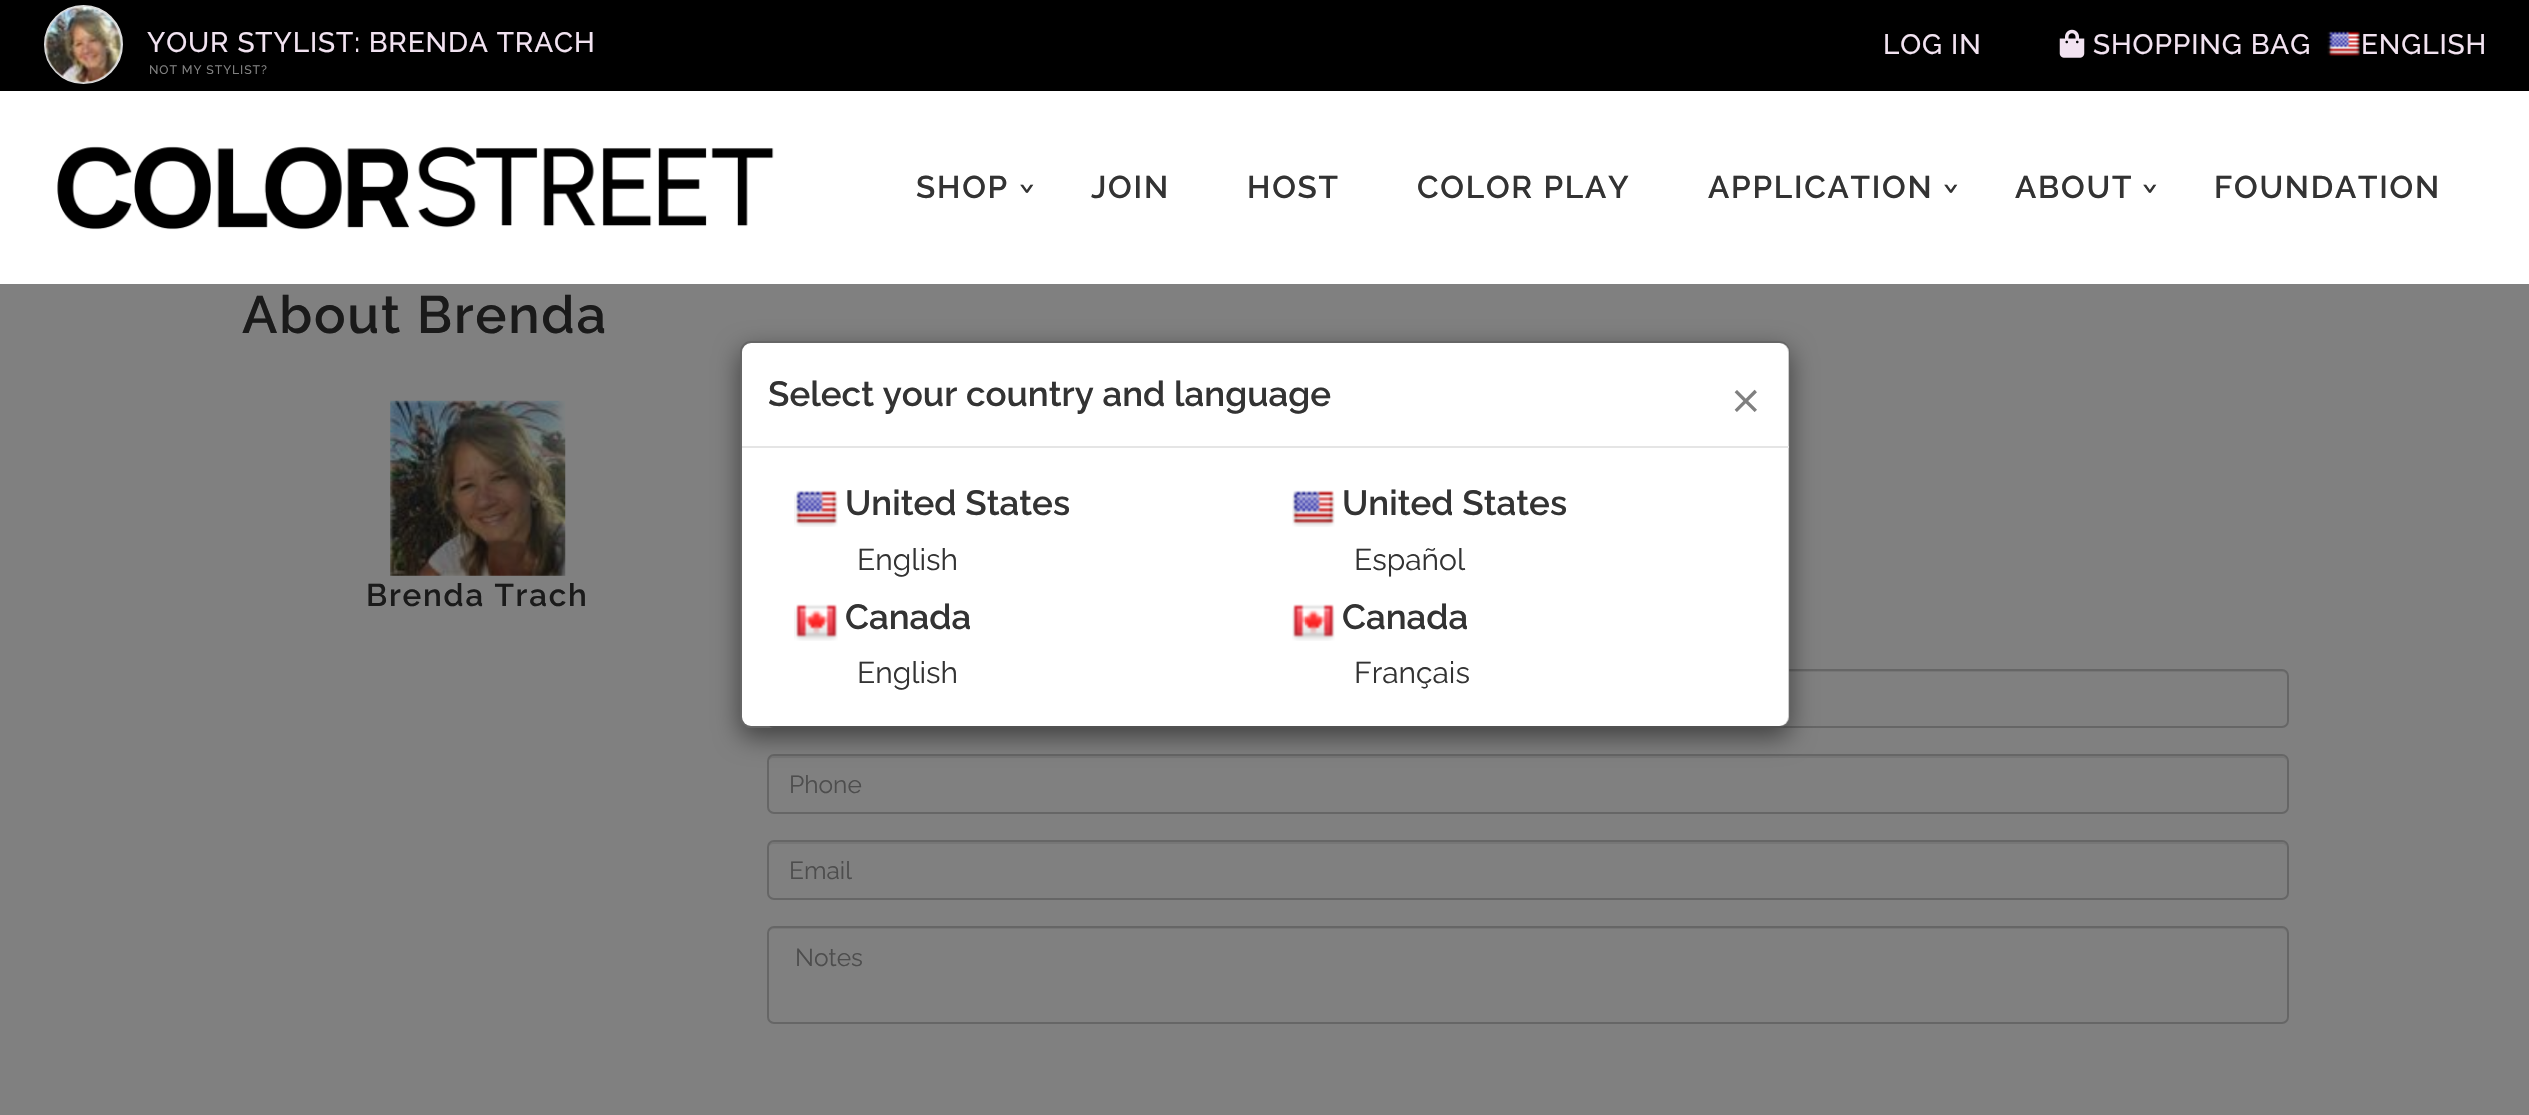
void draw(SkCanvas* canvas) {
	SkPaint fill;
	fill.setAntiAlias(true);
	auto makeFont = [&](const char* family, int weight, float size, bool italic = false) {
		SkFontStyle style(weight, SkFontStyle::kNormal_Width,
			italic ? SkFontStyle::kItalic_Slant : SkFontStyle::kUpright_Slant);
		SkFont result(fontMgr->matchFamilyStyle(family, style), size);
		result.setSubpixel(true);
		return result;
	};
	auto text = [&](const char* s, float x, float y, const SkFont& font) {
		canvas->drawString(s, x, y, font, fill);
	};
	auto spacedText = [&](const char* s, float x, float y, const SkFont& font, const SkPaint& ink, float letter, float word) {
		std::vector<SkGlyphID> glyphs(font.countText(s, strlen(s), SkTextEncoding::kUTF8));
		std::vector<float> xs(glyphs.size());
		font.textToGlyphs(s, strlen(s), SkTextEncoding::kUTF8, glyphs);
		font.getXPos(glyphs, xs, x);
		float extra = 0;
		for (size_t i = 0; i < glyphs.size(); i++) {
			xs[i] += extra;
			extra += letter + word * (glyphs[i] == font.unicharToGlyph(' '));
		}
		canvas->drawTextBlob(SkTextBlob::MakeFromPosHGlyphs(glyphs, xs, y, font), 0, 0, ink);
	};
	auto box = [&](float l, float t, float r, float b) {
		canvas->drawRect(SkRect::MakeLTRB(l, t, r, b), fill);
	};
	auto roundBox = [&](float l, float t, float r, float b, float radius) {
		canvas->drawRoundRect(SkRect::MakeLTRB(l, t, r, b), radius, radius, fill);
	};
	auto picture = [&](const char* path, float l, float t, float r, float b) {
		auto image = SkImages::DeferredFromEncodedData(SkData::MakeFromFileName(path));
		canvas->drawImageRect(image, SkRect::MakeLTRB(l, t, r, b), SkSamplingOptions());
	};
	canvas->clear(0xFF808080);
	fill.setColor(0xFF000000);
	box(0, 0, 2529, 91);
	fill.setColor(0xFFFFFFFF);
	canvas->drawCircle(83.5f, 44.5f, 38.5f, fill);
	fill.setStyle(SkPaint::kStroke_Style);
	fill.setStrokeWidth(2);
	fill.setColor(0xFFDDDDDD);
	canvas->drawCircle(83.5f, 44.5f, 38.5f, fill);
	picture("image0.png", 45, 7, 121, 83);
	picture("image1.png", 2059, 29, 2085, 58);
	picture("image2.png", 2327, 31, 2360, 56);
	fill.setStyle(SkPaint::kFill_Style);
	fill.setColor(0xFFFFFFFF);
	box(0, 91, 2529, 284);
	picture("image3.png", 57, 146, 774, 230);
	picture("image4.png", 390, 400, 566, 576);
	fill.setColor(0xFF767676);
	canvas->drawPath(SkPathBuilder().moveTo(774, 672).lineTo(2282, 672).cubicTo(2285, 672, 2287, 674, 2287, 677).cubicTo(2287, 674, 2286, 670, 2282, 670).lineTo(773, 670).cubicTo(769, 670, 768, 674, 768, 677).cubicTo(768, 674, 771, 672, 774, 672).close().detach(), fill);
	fill.setStyle(SkPaint::kStroke_Style);
	fill.setColor(0xFF666666);
	canvas->drawRoundRect(SkRect::MakeLTRB(768, 670, 2288, 727), 6, 6, fill);
	fill.setStyle(SkPaint::kFill_Style);
	fill.setColor(0xFF767676);
	canvas->drawPath(SkPathBuilder().moveTo(774, 758).lineTo(2282, 758).cubicTo(2285, 758, 2287, 760, 2287, 763).cubicTo(2287, 760, 2286, 756, 2282, 756).lineTo(773, 756).cubicTo(769, 756, 768, 760, 768, 763).cubicTo(768, 760, 771, 758, 774, 758).close().detach(), fill);
	fill.setStyle(SkPaint::kStroke_Style);
	fill.setColor(0xFF666666);
	canvas->drawRoundRect(SkRect::MakeLTRB(768, 755, 2288, 813), 6, 6, fill);
	fill.setStyle(SkPaint::kFill_Style);
	fill.setColor(0xFF767676);
	canvas->drawPath(SkPathBuilder().moveTo(774, 844).lineTo(2282, 844).cubicTo(2285, 844, 2287, 846, 2287, 849).cubicTo(2287, 846, 2286, 842, 2282, 842).lineTo(773, 842).cubicTo(769, 842, 768, 846, 768, 849).cubicTo(768, 846, 771, 844, 774, 844).close().detach(), fill);
	fill.setStyle(SkPaint::kStroke_Style);
	fill.setColor(0xFF666666);
	canvas->drawRoundRect(SkRect::MakeLTRB(768, 841, 2288, 899), 6, 6, fill);
	fill.setStyle(SkPaint::kFill_Style);
	fill.setColor(0xFF767676);
	canvas->drawPath(SkPathBuilder().moveTo(774, 929).lineTo(2282, 929).cubicTo(2285, 929, 2287, 932, 2287, 934).lineTo(2287, 933).cubicTo(2287, 930, 2285, 928, 2282, 928).lineTo(773, 928).cubicTo(770, 928, 768, 930, 768, 933).lineTo(768, 934).cubicTo(768, 932, 771, 929, 774, 929).close().detach(), fill);
	fill.setStyle(SkPaint::kStroke_Style);
	fill.setColor(0xFF666666);
	canvas->drawRoundRect(SkRect::MakeLTRB(768, 927, 2288, 1023), 6, 6, fill);
	canvas->save();
	canvas->clipPath(SkPathBuilder(SkPathFillType::kEvenOdd).moveTo(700, 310).lineTo(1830, 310).lineTo(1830, 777).lineTo(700, 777).close().moveTo(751, 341).lineTo(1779, 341).cubicTo(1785, 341, 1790, 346, 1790, 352).lineTo(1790, 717).cubicTo(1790, 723, 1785, 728, 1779, 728).lineTo(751, 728).cubicTo(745, 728, 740, 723, 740, 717).lineTo(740, 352).cubicTo(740, 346, 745, 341, 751, 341).close().detach(), true);
	fill.setStyle(SkPaint::kFill_Style);
	fill.setColor(0x80000000);
	fill.setMaskFilter(SkMaskFilter::MakeBlur(kNormal_SkBlurStyle, 13));
	canvas->drawRoundRect(SkRect::MakeLTRB(740, 350, 1790, 737), 11, 11, fill);
	fill.setMaskFilter(nullptr);
	canvas->restore();
	fill.setColor(0xFFFFFFFF);
	roundBox(742, 343, 1789, 726, 9);
	fill.setStyle(SkPaint::kStroke_Style);
	fill.setColor(0x33000000);
	canvas->drawRoundRect(SkRect::MakeLTRB(741, 342, 1789, 727), 10, 10, fill);
	fill.setStyle(SkPaint::kFill_Style);
	fill.setColor(0xFFE5E5E5);
	box(742, 446, 1789, 448);
	picture("image5.png", 794, 490, 838, 527);
	picture("image6.png", 1292, 490, 1335, 527);
	picture("image7.png", 794, 604, 838, 641);
	picture("image8.png", 1292, 604, 1335, 641);
	auto font1 = makeFont("Raleway", 500, 28);
	fill.setColor(0xFFF2E3F1);
	spacedText("YOUR STYLIST: BRENDA TRACH", 147, 52, font1, fill, 0.9f, 0);
	auto font2 = makeFont("Raleway", 500, 12.25f);
	fill.setColor(0xFF808080);
	spacedText("NOT MY STYLIST?", 149, 74, font2, fill, 0.9f, 0);
	fill.setColor(0xFFF2E3F1);
	spacedText("LOG IN", 1883, 54, font1, fill, 0.9f, 0);
	spacedText("SHOPPING BAG", 2093, 54, font1, fill, 0.9f, 0);
	spacedText("ENGLISH", 2361, 54, font1, fill, 0.9f, 0);
	auto font3 = makeFont("Raleway", 600, 31.5f);
	fill.setColor(0xFF333333);
	spacedText("SHOP", 916, 198, font3, fill, 1.75f, 0);
	canvas->save();
	canvas->rotate(-90, 1035, 194);
	spacedText("‹", 1035, 194, font3, fill, 1.75f, 0);
	canvas->restore();
	spacedText("JOIN", 1091, 198, font3, fill, 1.75f, 0);
	spacedText("HOST", 1247, 198, font3, fill, 1.75f, 0);
	spacedText("COLOR PLAY", 1417, 198, font3, fill, 1.75f, 0);
	spacedText("APPLICATION", 1708, 198, font3, fill, 1.75f, 0);
	canvas->save();
	canvas->rotate(-90, 1959, 194);
	spacedText("‹", 1959, 194, font3, fill, 1.75f, 0);
	canvas->restore();
	spacedText("ABOUT", 2015, 198, font3, fill, 1.75f, 0);
	canvas->save();
	canvas->rotate(-90, 2158, 194);
	spacedText("‹", 2158, 194, font3, fill, 1.75f, 0);
	canvas->restore();
	spacedText("FOUNDATION", 2214, 198, font3, fill, 1.75f, 0);
	auto font4 = makeFont("Raleway", 600, 52.5f);
	fill.setColor(0xFF1A1A1A);
	spacedText("About Brenda", 242, 333, font4, fill, 1.75f, 0);
	spacedText("Brenda Trach", 366, 606, font3, fill, 1.75f, 0);
	auto font5 = makeFont("Raleway", 400, 24.5f);
	fill.setColor(0xFF4D4D4D);
	text("Phone", 789, 793, font5);
	text("Email", 789, 879, font5);
	text("Notes", 795, 966, font5);
	auto font6 = makeFont("Raleway", 600, 35);
	fill.setColor(0xFF333333);
	text("Select your country and language", 768, 406, font6);
	auto font7 = makeFont("Raleway", 300, 70);
	fill.setColor(0xFF808080);
	spacedText("×", 1730, 420, font7, fill, 0.9f, 0);
	fill.setColor(0xFF333333);
	text("United States", 845, 515, font6);
	auto font8 = makeFont("Raleway", 400, 30);
	text("English", 857, 570, font8);
	text("United States", 1342, 515, font6);
	text("Español", 1354, 570, font8);
	text("Canada", 845, 629, font6);
	text("English", 857, 683, font8);
	text("Canada", 1342, 629, font6);
	text("Français", 1354, 683, font8);
}
